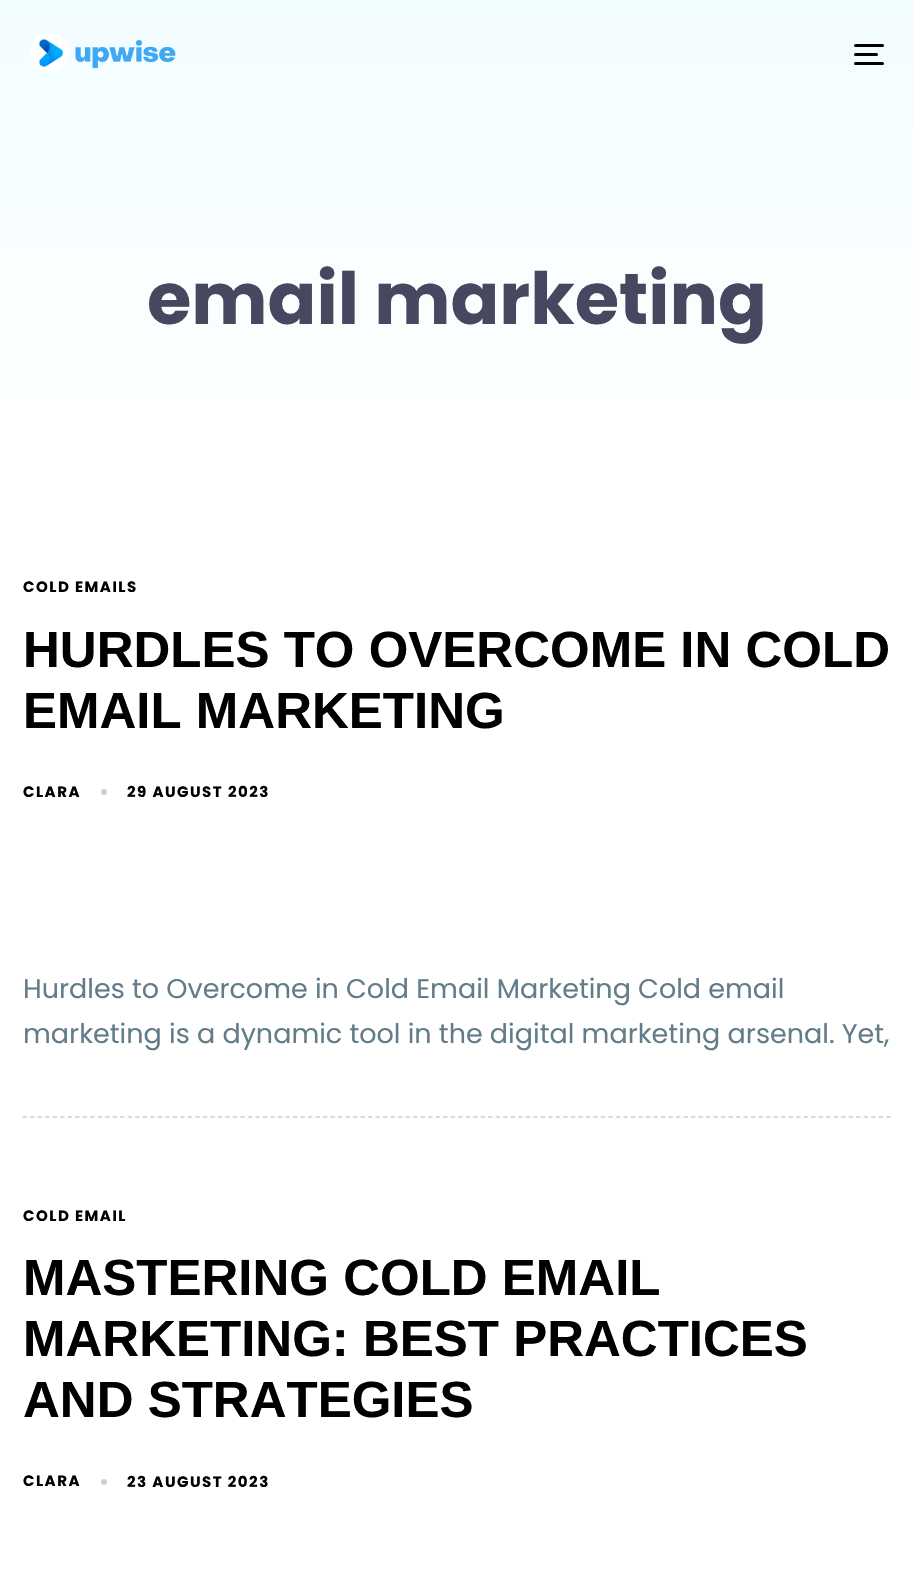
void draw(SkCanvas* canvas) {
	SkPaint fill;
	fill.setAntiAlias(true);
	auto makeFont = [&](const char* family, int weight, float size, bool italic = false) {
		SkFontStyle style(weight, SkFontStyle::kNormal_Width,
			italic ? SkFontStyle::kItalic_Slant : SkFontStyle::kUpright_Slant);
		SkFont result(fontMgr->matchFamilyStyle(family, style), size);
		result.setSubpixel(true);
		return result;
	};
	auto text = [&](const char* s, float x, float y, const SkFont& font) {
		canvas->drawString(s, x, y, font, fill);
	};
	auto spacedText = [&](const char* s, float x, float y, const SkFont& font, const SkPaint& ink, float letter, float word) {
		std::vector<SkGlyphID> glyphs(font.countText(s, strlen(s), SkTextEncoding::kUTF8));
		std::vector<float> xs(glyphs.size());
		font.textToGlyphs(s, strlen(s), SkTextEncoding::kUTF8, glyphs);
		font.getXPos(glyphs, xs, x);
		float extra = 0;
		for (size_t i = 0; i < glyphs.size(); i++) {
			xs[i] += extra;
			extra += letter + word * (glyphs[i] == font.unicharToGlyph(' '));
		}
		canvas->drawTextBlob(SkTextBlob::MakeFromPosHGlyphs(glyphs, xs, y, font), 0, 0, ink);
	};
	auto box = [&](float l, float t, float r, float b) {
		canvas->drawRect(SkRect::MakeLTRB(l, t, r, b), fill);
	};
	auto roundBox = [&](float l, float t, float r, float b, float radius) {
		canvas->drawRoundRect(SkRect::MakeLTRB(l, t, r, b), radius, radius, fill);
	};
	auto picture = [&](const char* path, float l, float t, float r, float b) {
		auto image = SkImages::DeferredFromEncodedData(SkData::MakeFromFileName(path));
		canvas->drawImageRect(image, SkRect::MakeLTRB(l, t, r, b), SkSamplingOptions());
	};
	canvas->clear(0xFFFFFFFF);
	{
		const SkColor colors[] = {0xFFF2FDFF, 0xFFFFFFFF};
		const float stops[] = {0, 1};
		const SkPoint ends[] = {{457, 0}, {457, 494}};
		fill.setShader(SkGradientShader::MakeLinear(ends, colors, stops, 2, SkTileMode::kClamp));
		fill.setAlpha(255);
	}
	box(0, 0, 913, 399);
	picture("image0.png", 30, 33, 176, 72);
	fill.setShader(nullptr);
	fill.setColor(0xFF000000);
	roundBox(854, 44, 884, 47, 1.5f);
	roundBox(854, 53, 878, 56, 1.5f);
	roundBox(854, 62, 884, 65, 1.5f);
	fill.setStyle(SkPaint::kStroke_Style);
	fill.setStrokeWidth(1.5f);
	fill.setColor(0xFFCECECE);
	fill.setPathEffect(SkDashPathEffect::Make({{4.5f, 3.01f}}, 0));
	canvas->drawPath(SkPathBuilder().moveTo(22.5f, 1117).lineTo(891, 1117).detach(), fill);
	fill.setPathEffect(nullptr);
	fill.setStyle(SkPaint::kFill_Style);
	fill.setColor(0xFFC8D1D6);
	canvas->drawCircle(104, 792, 3, fill);
	canvas->drawCircle(104, 1482, 3, fill);
	auto font1 = makeFont("Poppins", 700, 72);
	fill.setColor(0xFF45485F);
	text("email marketing", 147, 324, font1);
	auto font2 = makeFont("Poppins", 700, 15);
	fill.setColor(0xFF000000);
	spacedText("COLD EMAILS", 23, 592, font2, fill, 1.5f, 0);
	auto font3 = makeFont("Liberation Sans", 700, 51);
	text("HURDLES TO OVERCOME IN COLD", 23, 667, font3);
	text("EMAIL MARKETING", 23, 728, font3);
	spacedText("CLARA", 23, 797, font2, fill, 1.5f, 0);
	spacedText("29 AUGUST 2023", 127, 797, font2, fill, 1.5f, 0);
	auto font4 = makeFont("Poppins", 400, 27);
	fill.setColor(0xFF627C89);
	text("Hurdles to Overcome in Cold Email Marketing Cold email", 23, 998, font4);
	text("marketing is a dynamic tool in the digital marketing arsenal. Yet,", 23, 1043, font4);
	fill.setColor(0xFF000000);
	spacedText("COLD EMAIL", 23, 1221, font2, fill, 1.5f, 0);
	text("MASTERING COLD EMAIL", 23, 1295, font3);
	text("MARKETING: BEST PRACTICES", 23, 1356, font3);
	text("AND STRATEGIES", 23, 1417, font3);
	spacedText("CLARA", 23, 1486, font2, fill, 1.5f, 0);
	spacedText("23 AUGUST 2023", 127, 1487, font2, fill, 1.5f, 0);
}
